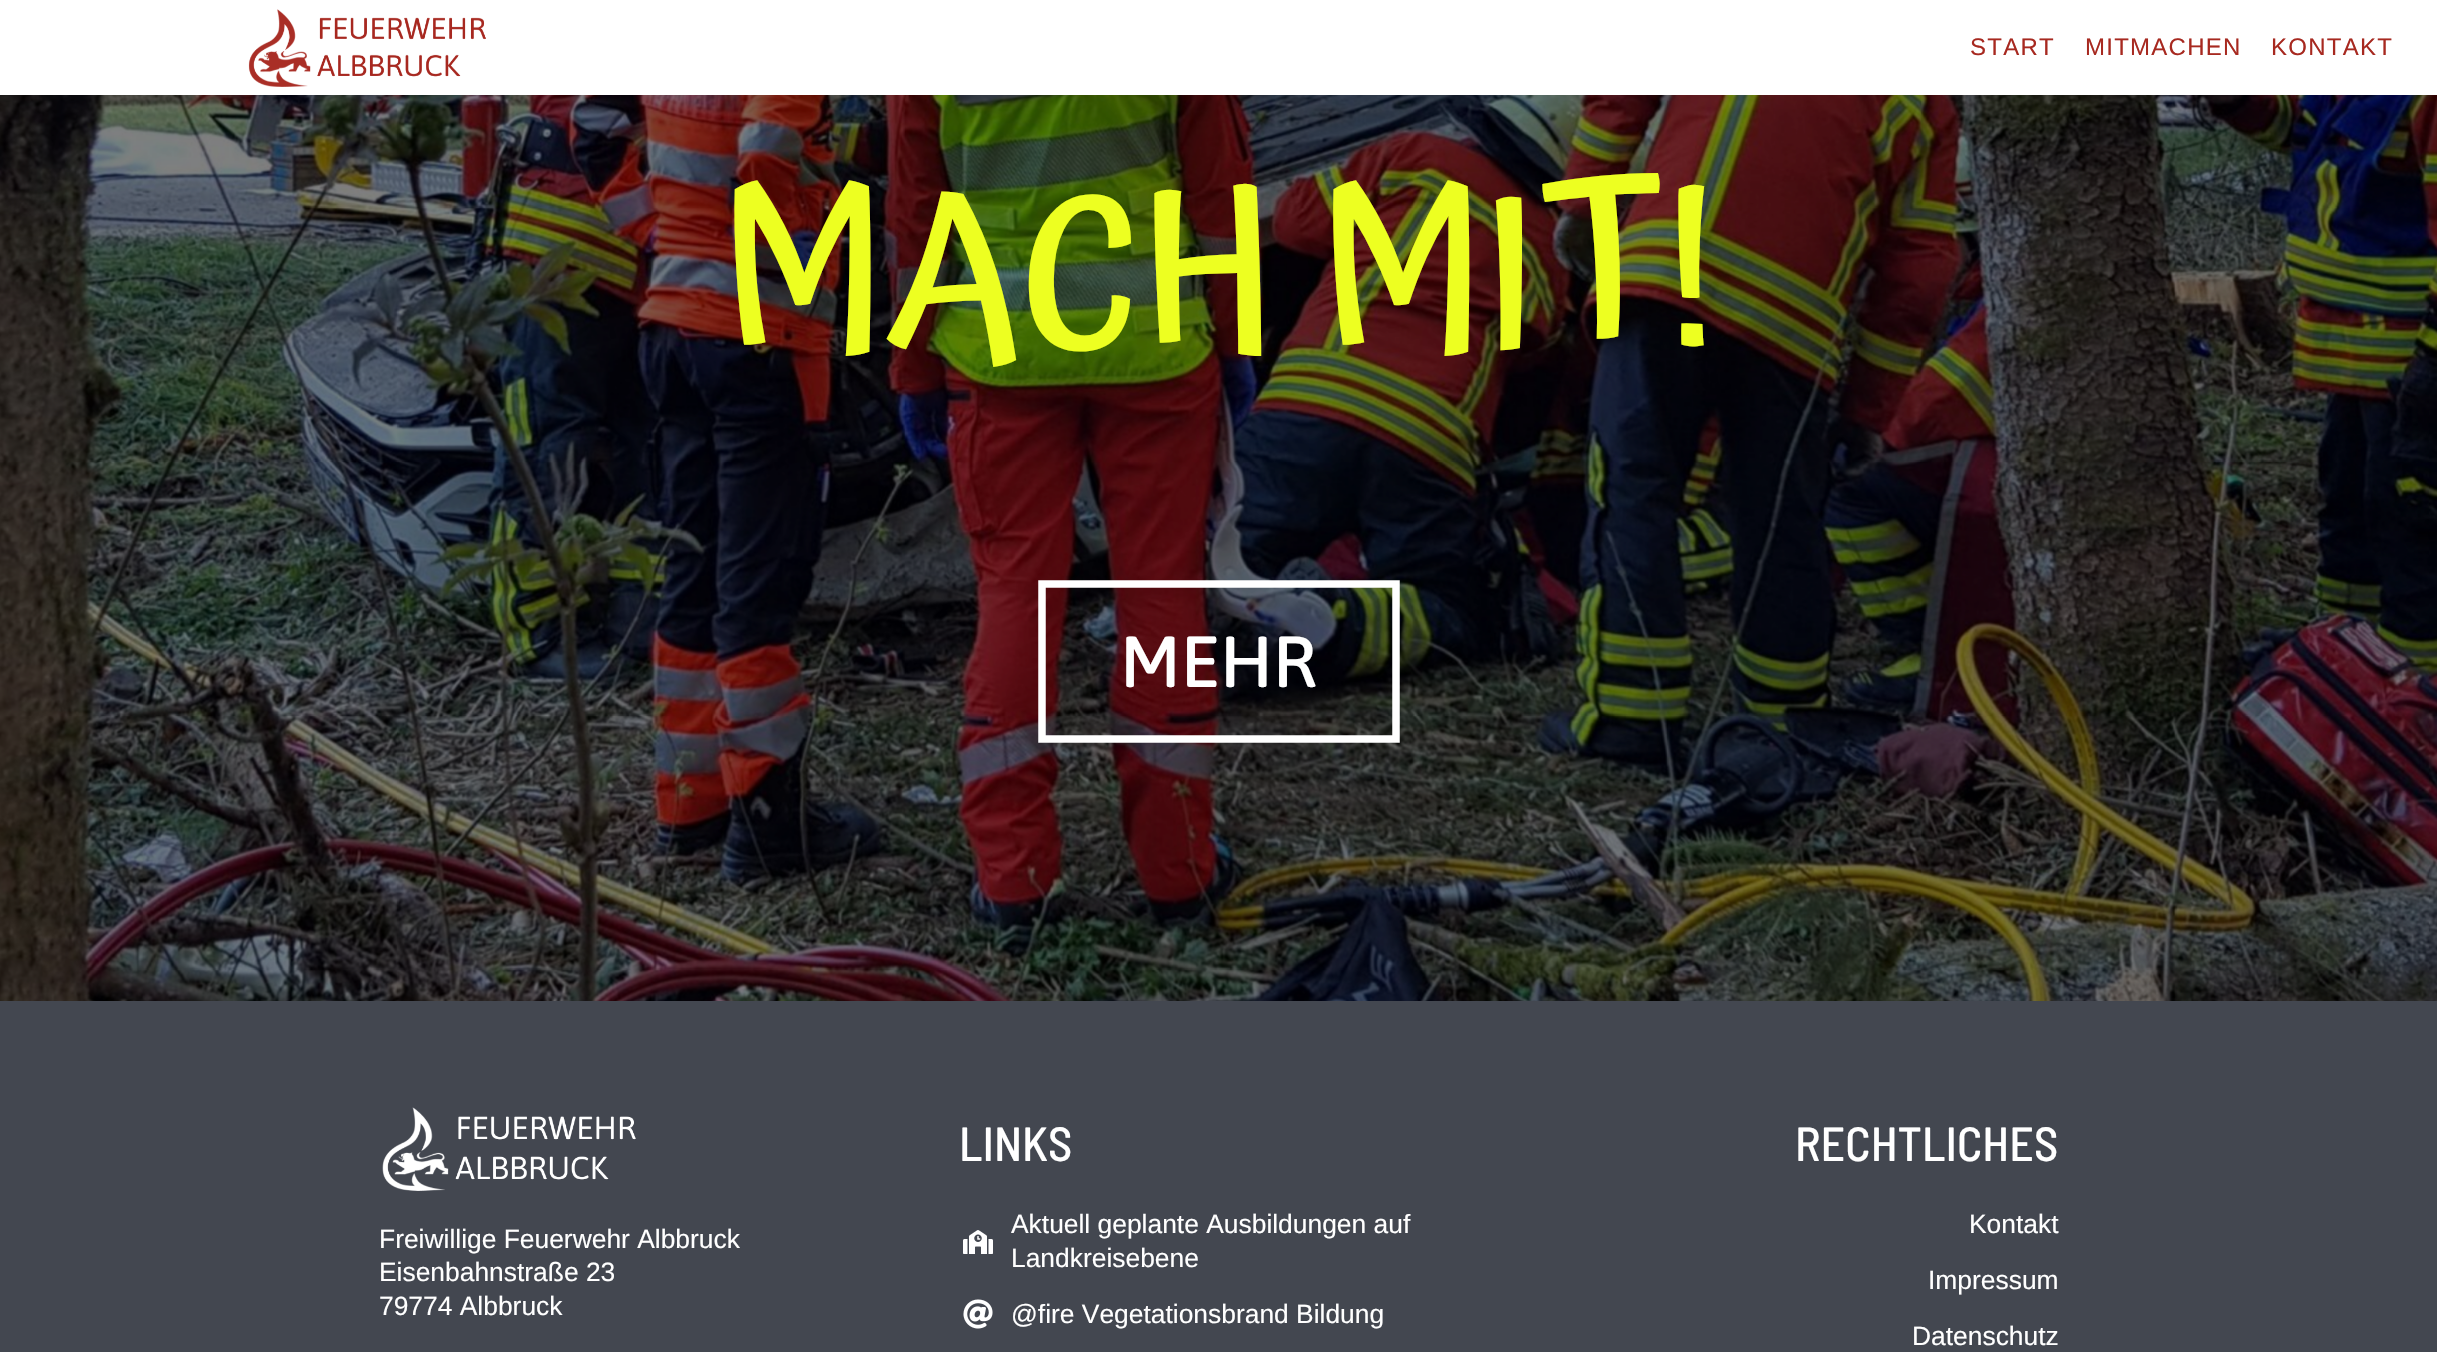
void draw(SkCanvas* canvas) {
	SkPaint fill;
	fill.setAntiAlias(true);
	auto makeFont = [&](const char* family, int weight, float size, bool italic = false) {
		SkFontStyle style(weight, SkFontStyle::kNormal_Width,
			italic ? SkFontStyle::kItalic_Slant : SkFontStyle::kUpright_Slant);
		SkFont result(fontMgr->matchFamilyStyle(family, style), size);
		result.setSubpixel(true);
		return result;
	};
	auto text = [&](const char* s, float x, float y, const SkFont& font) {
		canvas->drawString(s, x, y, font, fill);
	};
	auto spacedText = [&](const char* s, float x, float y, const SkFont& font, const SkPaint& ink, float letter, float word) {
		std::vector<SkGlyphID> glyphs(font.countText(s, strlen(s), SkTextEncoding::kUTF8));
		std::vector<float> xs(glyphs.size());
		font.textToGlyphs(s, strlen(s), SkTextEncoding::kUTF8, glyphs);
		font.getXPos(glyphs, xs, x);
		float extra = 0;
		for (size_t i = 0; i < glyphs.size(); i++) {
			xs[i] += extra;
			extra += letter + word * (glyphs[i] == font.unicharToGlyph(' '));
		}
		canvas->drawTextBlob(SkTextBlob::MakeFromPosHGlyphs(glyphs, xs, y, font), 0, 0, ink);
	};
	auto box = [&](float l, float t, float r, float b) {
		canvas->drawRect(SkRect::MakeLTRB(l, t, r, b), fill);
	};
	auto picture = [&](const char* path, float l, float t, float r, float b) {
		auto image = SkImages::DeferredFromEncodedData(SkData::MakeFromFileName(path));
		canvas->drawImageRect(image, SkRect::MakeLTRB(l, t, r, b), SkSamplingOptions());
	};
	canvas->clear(0xFF434750);
	fill.setColor(0xFFFFFFFF);
	box(0, 0, 2437, 95);
	picture("image0.png", 248, 9, 486, 87);
	picture("image1.png", 0, 95, 2437, 1001);
	fill.setStyle(SkPaint::kStroke_Style);
	fill.setStrokeWidth(7.5f);
	canvas->drawPath(SkPathBuilder().moveTo(1042, 584).lineTo(1396, 584).lineTo(1396, 739).lineTo(1042, 739).close().detach(), fill);
	picture("image2.png", 382, 1107, 636, 1191);
	picture("image3.png", 963, 1230, 993, 1254);
	picture("image4.png", 963, 1299, 993, 1329);
	auto font1 = makeFont("Liberation Sans", 400, 24);
	fill.setStyle(SkPaint::kFill_Style);
	fill.setColor(0xFFA72920);
	spacedText("START", 1970, 55, font1, fill, 1.25f, 0);
	spacedText("MITMACHEN", 2085, 55, font1, fill, 1.25f, 0);
	spacedText("KONTAKT", 2271, 55, font1, fill, 1.25f, 0);
	auto font2 = makeFont("Atma", 500, 216);
	fill.setColor(0xFFEDFF21);
	text("MACH MIT!", 719, 344, font2);
	auto font3 = makeFont("Asap", 500, 72);
	fill.setColor(0xFFFFFFFF);
	text("MEHR", 1120, 687, font3);
	auto font4 = makeFont("Liberation Sans", 400, 26.4f);
	text("Freiwillige Feuerwehr Albbruck", 379, 1248, font4);
	text("Eisenbahnstraße 23", 379, 1281, font4);
	text("79774 Albbruck", 379, 1315, font4);
	auto font5 = makeFont("Barlow Semi Condensed", 500, 48);
	text("LINKS", 959, 1161, font5);
	text("Aktuell geplante Ausbildungen auf", 1011, 1233, font4);
	text("Landkreisebene", 1011, 1267, font4);
	text("@fire Vegetationsbrand Bildung", 1011, 1323, font4);
	text("RECHTLICHES", 1795, 1161, font5);
	text("Kontakt", 1969, 1233, font4);
	text("Impressum", 1928, 1289, font4);
	text("Datenschutz", 1912, 1345, font4);
}
